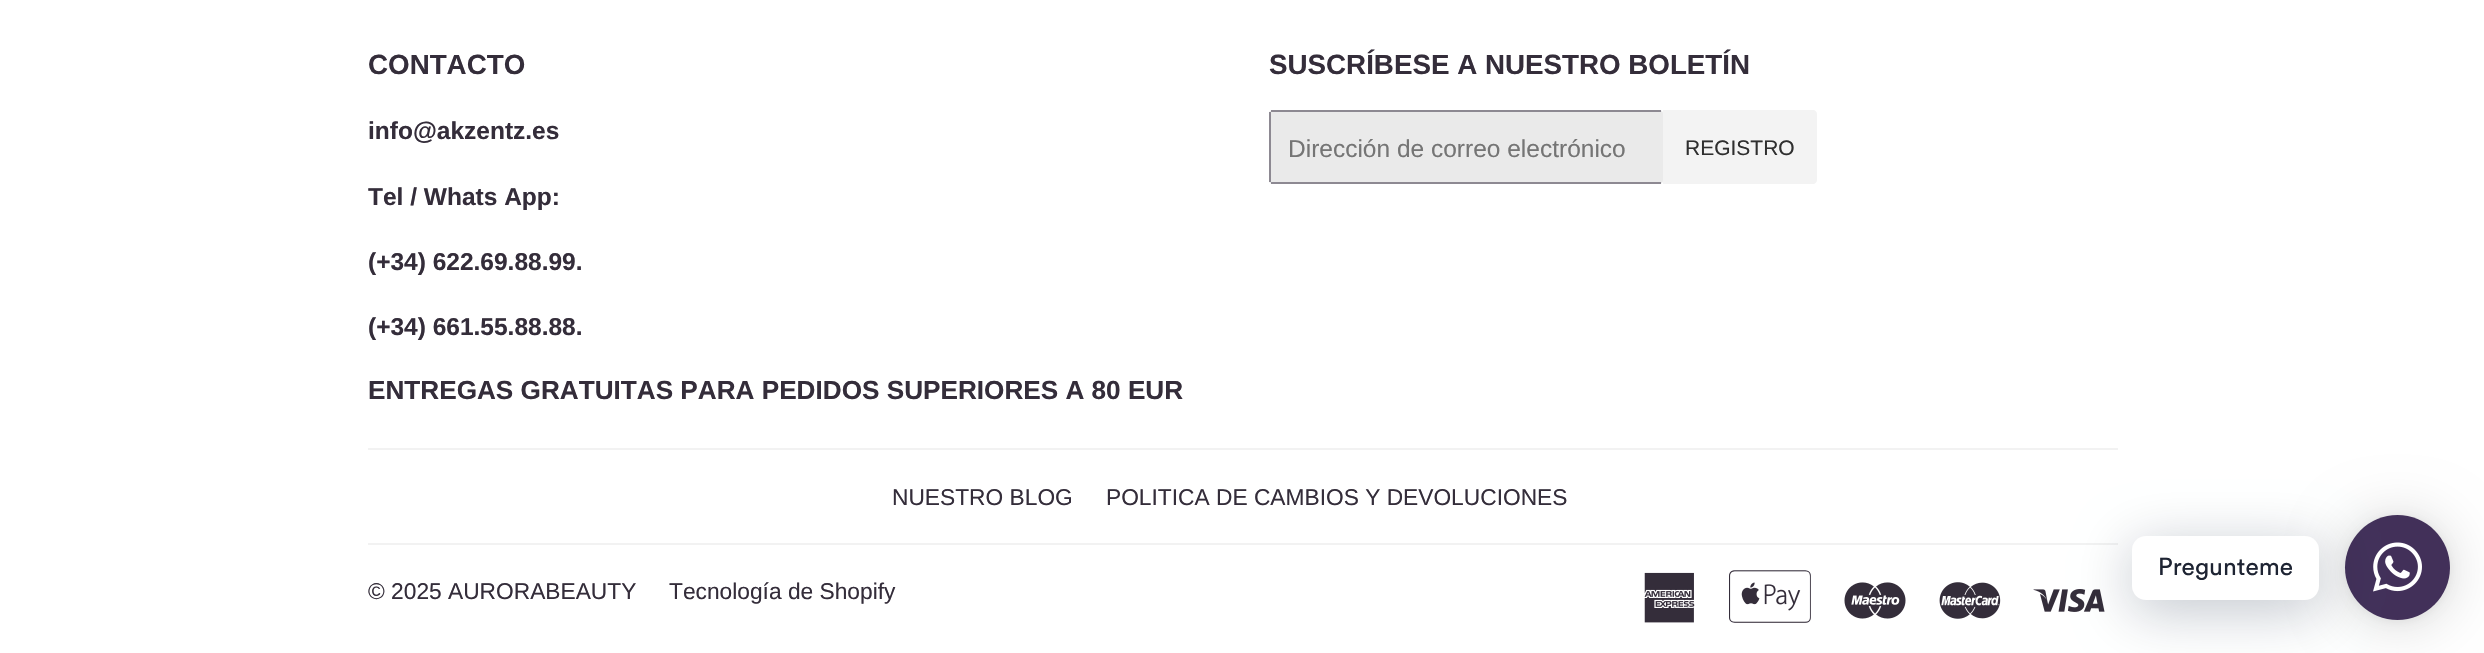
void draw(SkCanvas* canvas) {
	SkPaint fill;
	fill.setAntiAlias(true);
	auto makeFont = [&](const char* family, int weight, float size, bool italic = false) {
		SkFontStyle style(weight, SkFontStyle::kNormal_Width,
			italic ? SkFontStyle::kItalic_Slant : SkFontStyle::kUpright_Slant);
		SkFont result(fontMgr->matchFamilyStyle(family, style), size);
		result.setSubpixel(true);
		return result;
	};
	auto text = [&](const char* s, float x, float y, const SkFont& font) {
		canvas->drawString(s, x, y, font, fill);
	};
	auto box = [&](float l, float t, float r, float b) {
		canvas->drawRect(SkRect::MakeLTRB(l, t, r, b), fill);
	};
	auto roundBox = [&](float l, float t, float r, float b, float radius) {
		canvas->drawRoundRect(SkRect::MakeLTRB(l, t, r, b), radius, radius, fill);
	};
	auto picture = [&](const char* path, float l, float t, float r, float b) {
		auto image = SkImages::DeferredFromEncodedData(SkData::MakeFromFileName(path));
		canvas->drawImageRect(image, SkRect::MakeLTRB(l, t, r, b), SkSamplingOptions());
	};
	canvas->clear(0xFFFFFFFF);
	fill.setColor(0xFFEAEAEA);
	roundBox(1269, 110, 1663, 184, 4);
	fill.setColor(0xFF8D8992);
	box(1271, 110, 1661, 112);
	box(1271, 182, 1661, 184);
	box(1269, 112, 1271, 182);
	fill.setColor(0xFFF3F3F3);
	canvas->drawPath(SkPathBuilder().moveTo(1663, 110).lineTo(1813, 110).cubicTo(1815, 110, 1817, 112, 1817, 114).lineTo(1817, 180).cubicTo(1817, 182, 1815, 184, 1813, 184).lineTo(1663, 184).close().detach(), fill);
	fill.setColor(0xFFF2F2F2);
	box(368, 448, 2118, 450);
	box(368, 543, 2118, 545);
	picture("image0.png", 1644, 572, 1695, 623);
	picture("image1.png", 1729, 570, 1811, 623);
	picture("image2.png", 1844, 582, 1906, 619);
	picture("image3.png", 1939, 582, 2001, 619);
	picture("image4.png", 2033, 589, 2105, 612);
	fill.setColor(0x29000000);
	fill.setMaskFilter(SkMaskFilter::MakeBlur(kNormal_SkBlurStyle, 28));
	canvas->drawRoundRect(SkRect::MakeLTRB(2345, 518, 2450, 623), 52.5f, 52.5f, fill);
	fill.setMaskFilter(nullptr);
	fill.setColor(0x0F000000);
	fill.setMaskFilter(SkMaskFilter::MakeBlur(kNormal_SkBlurStyle, 5));
	canvas->drawRoundRect(SkRect::MakeLTRB(2345, 516, 2450, 621), 52.5f, 52.5f, fill);
	fill.setMaskFilter(nullptr);
	fill.setColor(0xFF423059);
	canvas->drawCircle(2397.5f, 567.5f, 52.5f, fill);
	fill.setColor(0x3D00122E);
	fill.setMaskFilter(SkMaskFilter::MakeBlur(kNormal_SkBlurStyle, 28));
	canvas->drawRoundRect(SkRect::MakeLTRB(2132, 546, 2319, 611), 14, 14, fill);
	fill.setMaskFilter(nullptr);
	fill.setColor(0xFFFFFFFF);
	roundBox(2132, 536, 2319, 600, 14);
	picture("image5.png", 2373, 542, 2422, 592);
	auto font1 = makeFont("Liberation Sans", 700, 27.75f);
	fill.setColor(0xFF342D3A);
	text("CONTACTO", 368, 74, font1);
	auto font2 = makeFont("Liberation Sans", 700, 24.5f);
	text("info@akzentz.es", 368, 139, font2);
	text("Tel / Whats App:", 368, 205, font2);
	text("(+34) 622.69.88.99.", 368, 270, font2);
	text("(+34) 661.55.88.88.", 368, 335, font2);
	auto font3 = makeFont("Liberation Sans", 700, 26.15f);
	text("ENTREGAS GRATUITAS PARA PEDIDOS SUPERIORES A 80 EUR", 368, 399, font3);
	text("SUSCRÍBESE A NUESTRO BOLETÍN", 1269, 74, font1);
	auto font4 = makeFont("Liberation Sans", 400, 24.5f);
	fill.setColor(0xFF757575);
	text("Dirección de correo electrónico", 1288, 157, font4);
	auto font5 = makeFont("Liberation Sans", 400, 21);
	fill.setColor(0xFF2F2F2F);
	text("REGISTRO", 1685, 155, font5);
	auto font6 = makeFont("Liberation Sans", 400, 22.75f);
	fill.setColor(0xFF342D3A);
	text("NUESTRO BLOG", 892, 505, font6);
	text("POLITICA DE CAMBIOS Y DEVOLUCIONES", 1106, 505, font6);
	text("© 2025 AURORABEAUTY", 368, 599, font6);
	text("Tecnología de Shopify", 669, 599, font6);
	auto font7 = makeFont("Circular", 400, 24.5f);
	fill.setColor(0xFF1E2433);
	text("Pregunteme", 2158, 575, font7);
}
